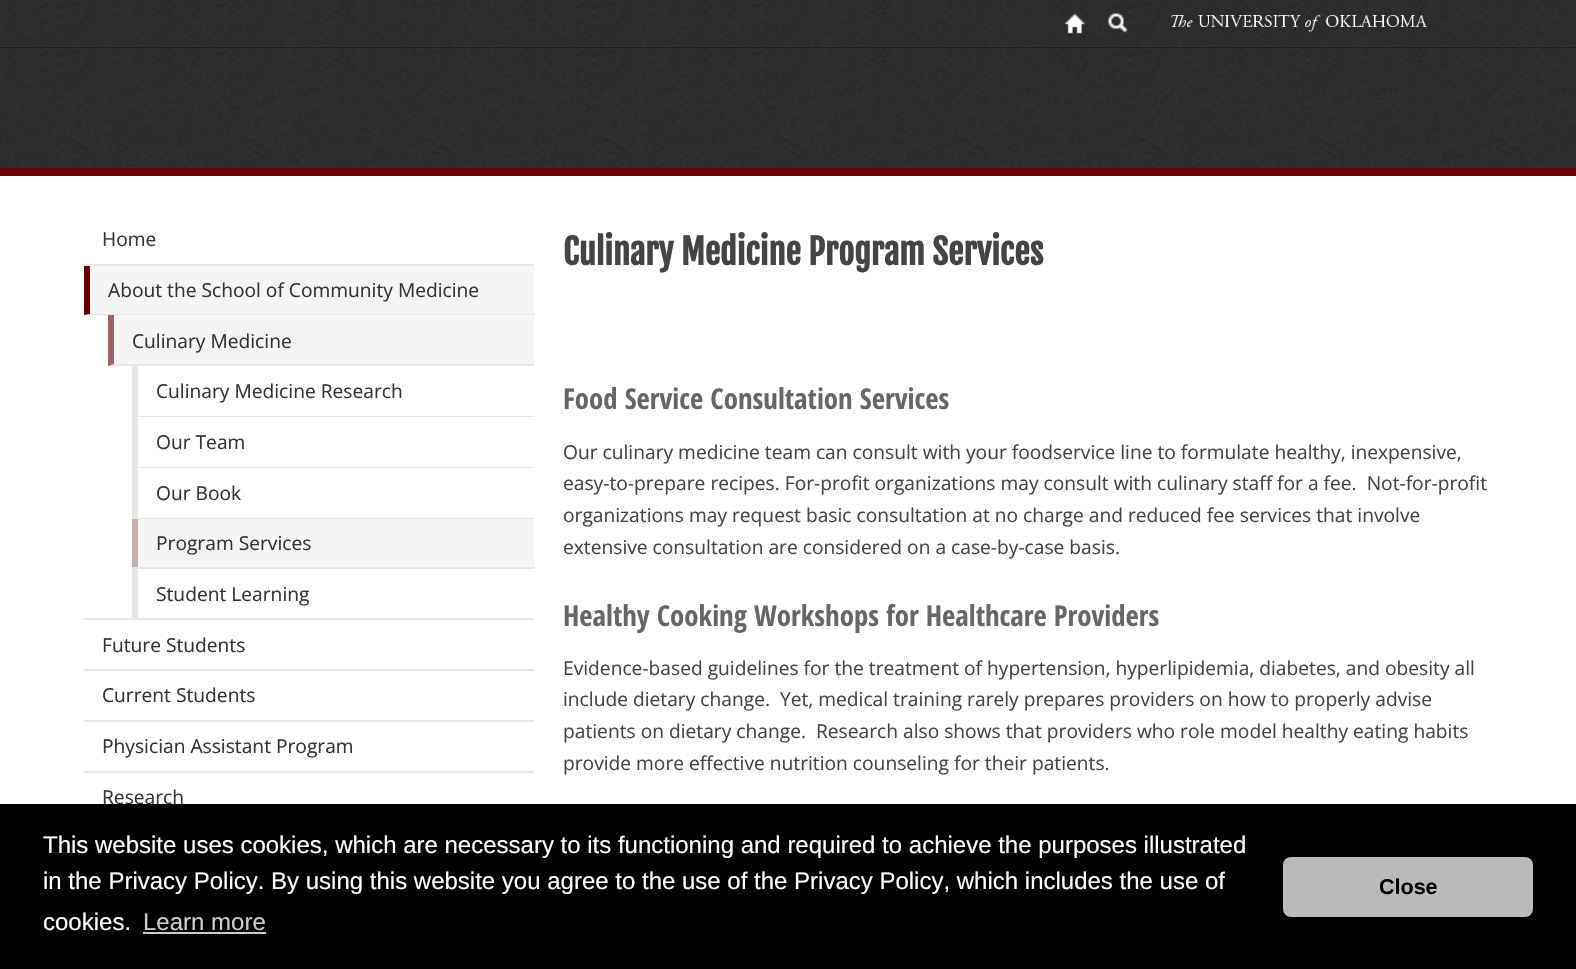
void draw(SkCanvas* canvas) {
	SkPaint fill;
	fill.setAntiAlias(true);
	auto makeFont = [&](const char* family, int weight, float size, bool italic = false) {
		SkFontStyle style(weight, SkFontStyle::kNormal_Width,
			italic ? SkFontStyle::kItalic_Slant : SkFontStyle::kUpright_Slant);
		SkFont result(fontMgr->matchFamilyStyle(family, style), size);
		result.setSubpixel(true);
		return result;
	};
	auto text = [&](const char* s, float x, float y, const SkFont& font) {
		canvas->drawString(s, x, y, font, fill);
	};
	auto box = [&](float l, float t, float r, float b) {
		canvas->drawRect(SkRect::MakeLTRB(l, t, r, b), fill);
	};
	auto roundBox = [&](float l, float t, float r, float b, float radius) {
		canvas->drawRoundRect(SkRect::MakeLTRB(l, t, r, b), radius, radius, fill);
	};
	auto picture = [&](const char* path, float l, float t, float r, float b) {
		auto image = SkImages::DeferredFromEncodedData(SkData::MakeFromFileName(path));
		canvas->drawImageRect(image, SkRect::MakeLTRB(l, t, r, b), SkSamplingOptions());
	};
	canvas->clear(0xFFFFFFFF);
	picture("image0.png", 0, 0, 1576, 45);
	picture("image1.png", 1064, 13, 1085, 34);
	picture("image2.png", 1108, 13, 1128, 33);
	picture("image3.png", 1171, 15, 1427, 32);
	fill.setColor(0xFF1E1E1E);
	box(0, 47, 1576, 48);
	fill.setColor(0xFF303030);
	box(0, 45, 1576, 47);
	picture("image4.png", 0, 48, 1576, 168);
	fill.setColor(0xFF660000);
	box(0, 168, 1576, 176);
	fill.setColor(0xFFE6E6E6);
	box(84, 264, 534, 266);
	box(84, 618, 534, 620);
	fill.setColor(0xFFF5F5F5);
	box(84, 266, 534, 315);
	fill.setColor(0xFFE6E6E6);
	canvas->drawPath(SkPathBuilder().moveTo(534, 315).lineTo(84, 315).lineTo(90, 314).lineTo(534, 314).close().detach(), fill);
	fill.setColor(0xFF660000);
	canvas->drawPath(SkPathBuilder().moveTo(84, 315).lineTo(84, 266).lineTo(90, 266).lineTo(90, 314).close().detach(), fill);
	fill.setColor(0xFFF5F5F5);
	box(108, 315, 534, 366);
	fill.setColor(0xFFE6E6E6);
	canvas->drawPath(SkPathBuilder().moveTo(534, 366).lineTo(108, 366).lineTo(114, 364).lineTo(534, 364).close().detach(), fill);
	fill.setColor(0x99660000);
	canvas->drawPath(SkPathBuilder().moveTo(108, 366).lineTo(108, 315).lineTo(114, 315).lineTo(114, 364).close().detach(), fill);
	fill.setColor(0xFFE6E6E6);
	box(132, 416, 534, 417);
	box(132, 366, 138, 416);
	box(132, 467, 534, 468);
	box(132, 417, 138, 467);
	box(132, 518, 534, 519);
	box(132, 468, 138, 518);
	box(132, 567, 534, 569);
	fill.setColor(0xFFF5F5F5);
	box(138, 519, 534, 567);
	fill.setColor(0xFFCAACAC);
	box(132, 519, 138, 567);
	fill.setColor(0xFFE6E6E6);
	box(132, 569, 138, 618);
	box(84, 669, 534, 671);
	box(84, 720, 534, 722);
	box(84, 771, 534, 773);
	auto font1 = makeFont("Open Sans", 400, 19.2f);
	fill.setColor(0xFF333333);
	text("Home", 102, 246, font1);
	text("About the School of Community Medicine", 108, 297, font1);
	text("Culinary Medicine", 132, 348, font1);
	text("Culinary Medicine Research", 156, 398, font1);
	text("Our Team", 156, 449, font1);
	text("Our Book", 156, 500, font1);
	text("Program Services", 156, 550, font1);
	text("Student Learning", 156, 601, font1);
	text("Future Students", 102, 652, font1);
	text("Current Students", 102, 702, font1);
	text("Physician Assistant Program", 102, 753, font1);
	text("Research", 102, 804, font1);
	auto font2 = makeFont("Fjalla One", 700, 34.5f);
	fill.setColor(0xFF444444);
	text("Culinary Medicine Program Services", 563, 265, font2);
	auto font3 = makeFont("Open Sans Condensed", 700, 28.8f);
	fill.setColor(0xFF666666);
	text("Food Service Consultation Services", 563, 409, font3);
	fill.setColor(0xFF444444);
	text("Our culinary medicine team can consult with your foodservice line to formulate healthy, inexpensive,", 563, 459, font1);
	text("easy-to-prepare recipes. For-profit organizations may consult with culinary staff for a fee.  Not-for-profit", 563, 490, font1);
	text("organizations may request basic consultation at no charge and reduced fee services that involve", 563, 522, font1);
	text("extensive consultation are considered on a case-by-case basis.", 563, 554, font1);
	fill.setColor(0xFF666666);
	text("Healthy Cooking Workshops for Healthcare Providers", 563, 626, font3);
	fill.setColor(0xFF444444);
	text("Evidence-based guidelines for the treatment of hypertension, hyperlipidemia, diabetes, and obesity all", 563, 675, font1);
	text("include dietary change.  Yet, medical training rarely prepares providers on how to properly advise", 563, 706, font1);
	text("patients on dietary change.  Research also shows that providers who role model healthy eating habits", 563, 738, font1);
	text("provide more effective nutrition counseling for their patients.", 563, 770, font1);
	fill.setColor(0xFF000000);
	box(0, 804, 1576, 969);
	auto font4 = makeFont("Liberation Sans", 400, 24);
	fill.setColor(0xFFFFFFFF);
	text("This website uses cookies, which are necessary to its functioning and required to achieve the purposes illustrated", 43, 853, font4);
	text("in the Privacy Policy. By using this website you agree to the use of the Privacy Policy, which includes the use of", 43, 889, font4);
	text("cookies.", 43, 930, font4);
	fill.setColor(0xFFCCCCCC);
	text("Learn more", 143, 930, font4);
	box(143, 932, 266, 934);
	fill.setColor(0xFFBABABA);
	roundBox(1283, 857, 1533, 917, 8);
	auto font5 = makeFont("Liberation Sans", 700, 21.5f);
	fill.setColor(0xFF000000);
	text("Close", 1379, 894, font5);
}
